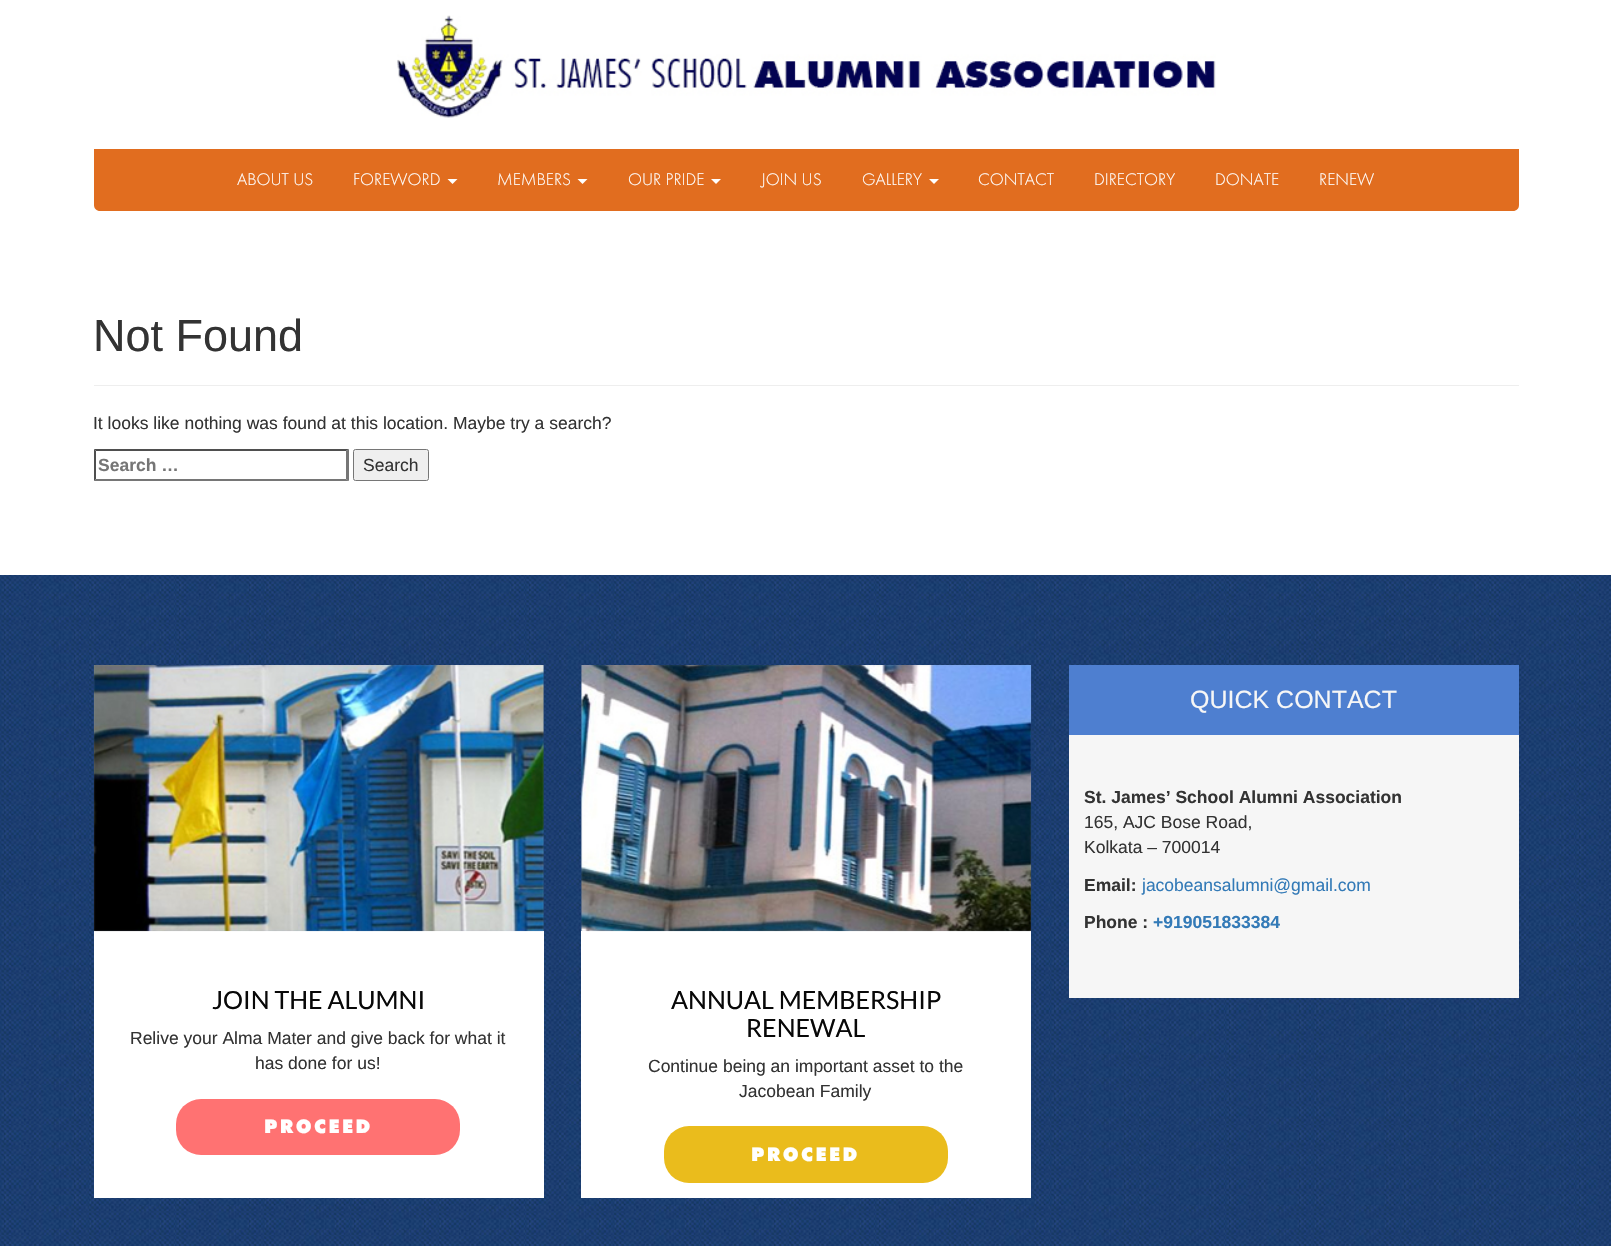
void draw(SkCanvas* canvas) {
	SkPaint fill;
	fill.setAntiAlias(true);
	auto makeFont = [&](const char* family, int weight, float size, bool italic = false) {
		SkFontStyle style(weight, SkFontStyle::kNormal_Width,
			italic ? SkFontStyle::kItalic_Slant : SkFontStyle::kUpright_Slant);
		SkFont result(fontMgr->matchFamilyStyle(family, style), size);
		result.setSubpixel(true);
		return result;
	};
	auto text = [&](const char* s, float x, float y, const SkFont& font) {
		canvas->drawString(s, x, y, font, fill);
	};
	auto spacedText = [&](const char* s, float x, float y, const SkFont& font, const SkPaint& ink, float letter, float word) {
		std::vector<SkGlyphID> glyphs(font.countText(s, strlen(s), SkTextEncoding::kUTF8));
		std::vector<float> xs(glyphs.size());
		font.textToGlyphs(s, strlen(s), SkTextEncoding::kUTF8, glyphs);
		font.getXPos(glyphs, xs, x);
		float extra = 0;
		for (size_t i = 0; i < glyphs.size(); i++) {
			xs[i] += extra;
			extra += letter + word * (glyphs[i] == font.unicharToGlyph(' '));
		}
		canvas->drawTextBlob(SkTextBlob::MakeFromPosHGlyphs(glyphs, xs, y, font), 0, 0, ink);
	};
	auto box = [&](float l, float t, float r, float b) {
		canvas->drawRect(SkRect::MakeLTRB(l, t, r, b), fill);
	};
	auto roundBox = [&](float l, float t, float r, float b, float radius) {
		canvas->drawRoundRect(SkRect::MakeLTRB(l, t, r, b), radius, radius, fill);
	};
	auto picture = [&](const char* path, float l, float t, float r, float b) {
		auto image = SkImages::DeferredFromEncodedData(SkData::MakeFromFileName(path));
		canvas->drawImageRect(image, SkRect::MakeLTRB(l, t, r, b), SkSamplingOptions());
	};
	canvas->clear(0xFFFFFFFF);
	picture("image0.png", 397, 15, 1216, 118);
	fill.setColor(0xFFE16D1F);
	canvas->drawPath(SkPathBuilder().moveTo(94, 149).lineTo(1519, 149).lineTo(1519, 205).cubicTo(1519, 208.5f, 1516.5f, 211, 1513, 211).lineTo(100, 211).cubicTo(96.5f, 211, 94, 208.5f, 94, 205).close().detach(), fill);
	fill.setColor(0xFFFFFFFF);
	canvas->drawPath(SkPathBuilder().moveTo(447.5f, 179).lineTo(457.5f, 179).lineTo(452.5f, 184).close().detach(), fill);
	canvas->drawPath(SkPathBuilder().moveTo(577.5f, 179).lineTo(587.5f, 179).lineTo(582.5f, 184).close().detach(), fill);
	canvas->drawPath(SkPathBuilder().moveTo(711, 179).lineTo(721, 179).lineTo(716, 184).close().detach(), fill);
	canvas->drawPath(SkPathBuilder().moveTo(929, 179).lineTo(939, 179).lineTo(934, 184).close().detach(), fill);
	fill.setColor(0xFFEEEEEE);
	box(94, 385, 1519, 386);
	fill.setColor(0xFF4F4F4F);
	canvas->drawPath(SkPathBuilder().moveTo(94, 449).lineTo(349, 449).lineTo(346, 451).lineTo(96, 451).close().detach(), fill);
	fill.setColor(0xFF767676);
	canvas->drawPath(SkPathBuilder().moveTo(349, 449).lineTo(349, 481).lineTo(346, 479).lineTo(346, 451).close().detach(), fill);
	canvas->drawPath(SkPathBuilder().moveTo(349, 481).lineTo(94, 481).lineTo(96, 479).lineTo(346, 479).close().detach(), fill);
	fill.setColor(0xFF4F4F4F);
	canvas->drawPath(SkPathBuilder().moveTo(94, 481).lineTo(94, 449).lineTo(96, 451).lineTo(96, 479).close().detach(), fill);
	fill.setColor(0xFFEFEFEF);
	canvas->drawRoundRect(SkRect::MakeLTRB(353.5f, 449.5f, 428.5f, 480.5f), 2, 2, fill);
	fill.setStyle(SkPaint::kStroke_Style);
	fill.setStrokeWidth(1);
	fill.setColor(0xFF767676);
	canvas->drawRoundRect(SkRect::MakeLTRB(353.5f, 449.5f, 428.5f, 480.5f), 2, 2, fill);
	picture("image1.png", 0, 575, 1611, 1246);
	fill.setStyle(SkPaint::kFill_Style);
	fill.setColor(0xFF4E7FD0);
	box(1069, 665, 1519, 735);
	fill.setColor(0xFFF6F6F6);
	box(1069, 735, 1519, 998);
	fill.setColor(0xFFFFFFFF);
	box(94, 931, 544, 1198);
	picture("image2.png", 93, 665, 544, 932);
	fill.setColor(0xFFFF7272);
	roundBox(176, 1099, 460, 1155, 25);
	fill.setColor(0xFFFFFFFF);
	box(581, 931, 1031, 1198);
	picture("image3.png", 581, 665, 1032, 932);
	fill.setColor(0xFFEABC1C);
	roundBox(664, 1126, 948, 1183, 25);
	auto font1 = makeFont("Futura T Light", 300, 17.5f);
	fill.setColor(0xFFFFFFFF);
	text("ABOUT US", 237, 185, font1);
	text("FOREWORD", 353, 185, font1);
	text("MEMBERS", 497, 185, font1);
	text("OUR PRIDE", 628, 185, font1);
	text("JOIN US", 761, 185, font1);
	text("GALLERY", 862, 185, font1);
	text("CONTACT", 978, 185, font1);
	text("DIRECTORY", 1094, 185, font1);
	text("DONATE", 1215, 185, font1);
	text("RENEW", 1319, 185, font1);
	auto font2 = makeFont("Liberation Sans", 400, 45);
	fill.setColor(0xFF333333);
	text("Not Found", 93, 351, font2);
	auto font3 = makeFont("Liberation Sans", 400, 17.5f);
	text("It looks like nothing was found at this location. Maybe try a search?", 93, 429, font3);
	auto font4 = makeFont("Liberation Sans", 700, 17.5f);
	fill.setColor(0xFF757575);
	text("Search …", 98, 471, font4);
	fill.setColor(0xFF333333);
	text("Search", 363, 471, font3);
	auto font5 = makeFont("Liberation Sans", 400, 25);
	fill.setColor(0xFFF6F6F6);
	text("QUICK CONTACT", 1190, 708, font5);
	fill.setColor(0xFF333333);
	text("St. James’ School Alumni Association", 1084, 803, font4);
	text("165, AJC Bose Road,", 1084, 828, font3);
	text("Kolkata – 700014", 1084, 853, font3);
	text("Email:", 1084, 891, font4);
	fill.setColor(0xFF337AB7);
	text("jacobeansalumni@gmail.com", 1142, 891, font3);
	fill.setColor(0xFF333333);
	text("Phone :", 1084, 928, font4);
	fill.setColor(0xFF337AB7);
	text("+919051833384", 1153, 928, font4);
	auto font6 = makeFont("Lato", 400, 25);
	fill.setColor(0xFF080808);
	text("JOIN THE ALUMNI", 212, 1009, font6);
	fill.setColor(0xFF333333);
	text("Relive your Alma Mater and give back for what it", 130, 1044, font3);
	text("has done for us!", 255, 1069, font3);
	auto font7 = makeFont("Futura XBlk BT", 800, 18.75f);
	fill.setColor(0xFFFFFFFF);
	spacedText("PROCEED", 264, 1133, font7, fill, 2.5f, 0);
	fill.setColor(0xFF080808);
	text("ANNUAL MEMBERSHIP", 671, 1009, font6);
	text("RENEWAL", 746, 1037, font6);
	fill.setColor(0xFF333333);
	text("Continue being an important asset to the", 648, 1072, font3);
	text("Jacobean Family", 739, 1097, font3);
	fill.setColor(0xFFFFFFFF);
	spacedText("PROCEED", 751, 1161, font7, fill, 2.5f, 0);
}
